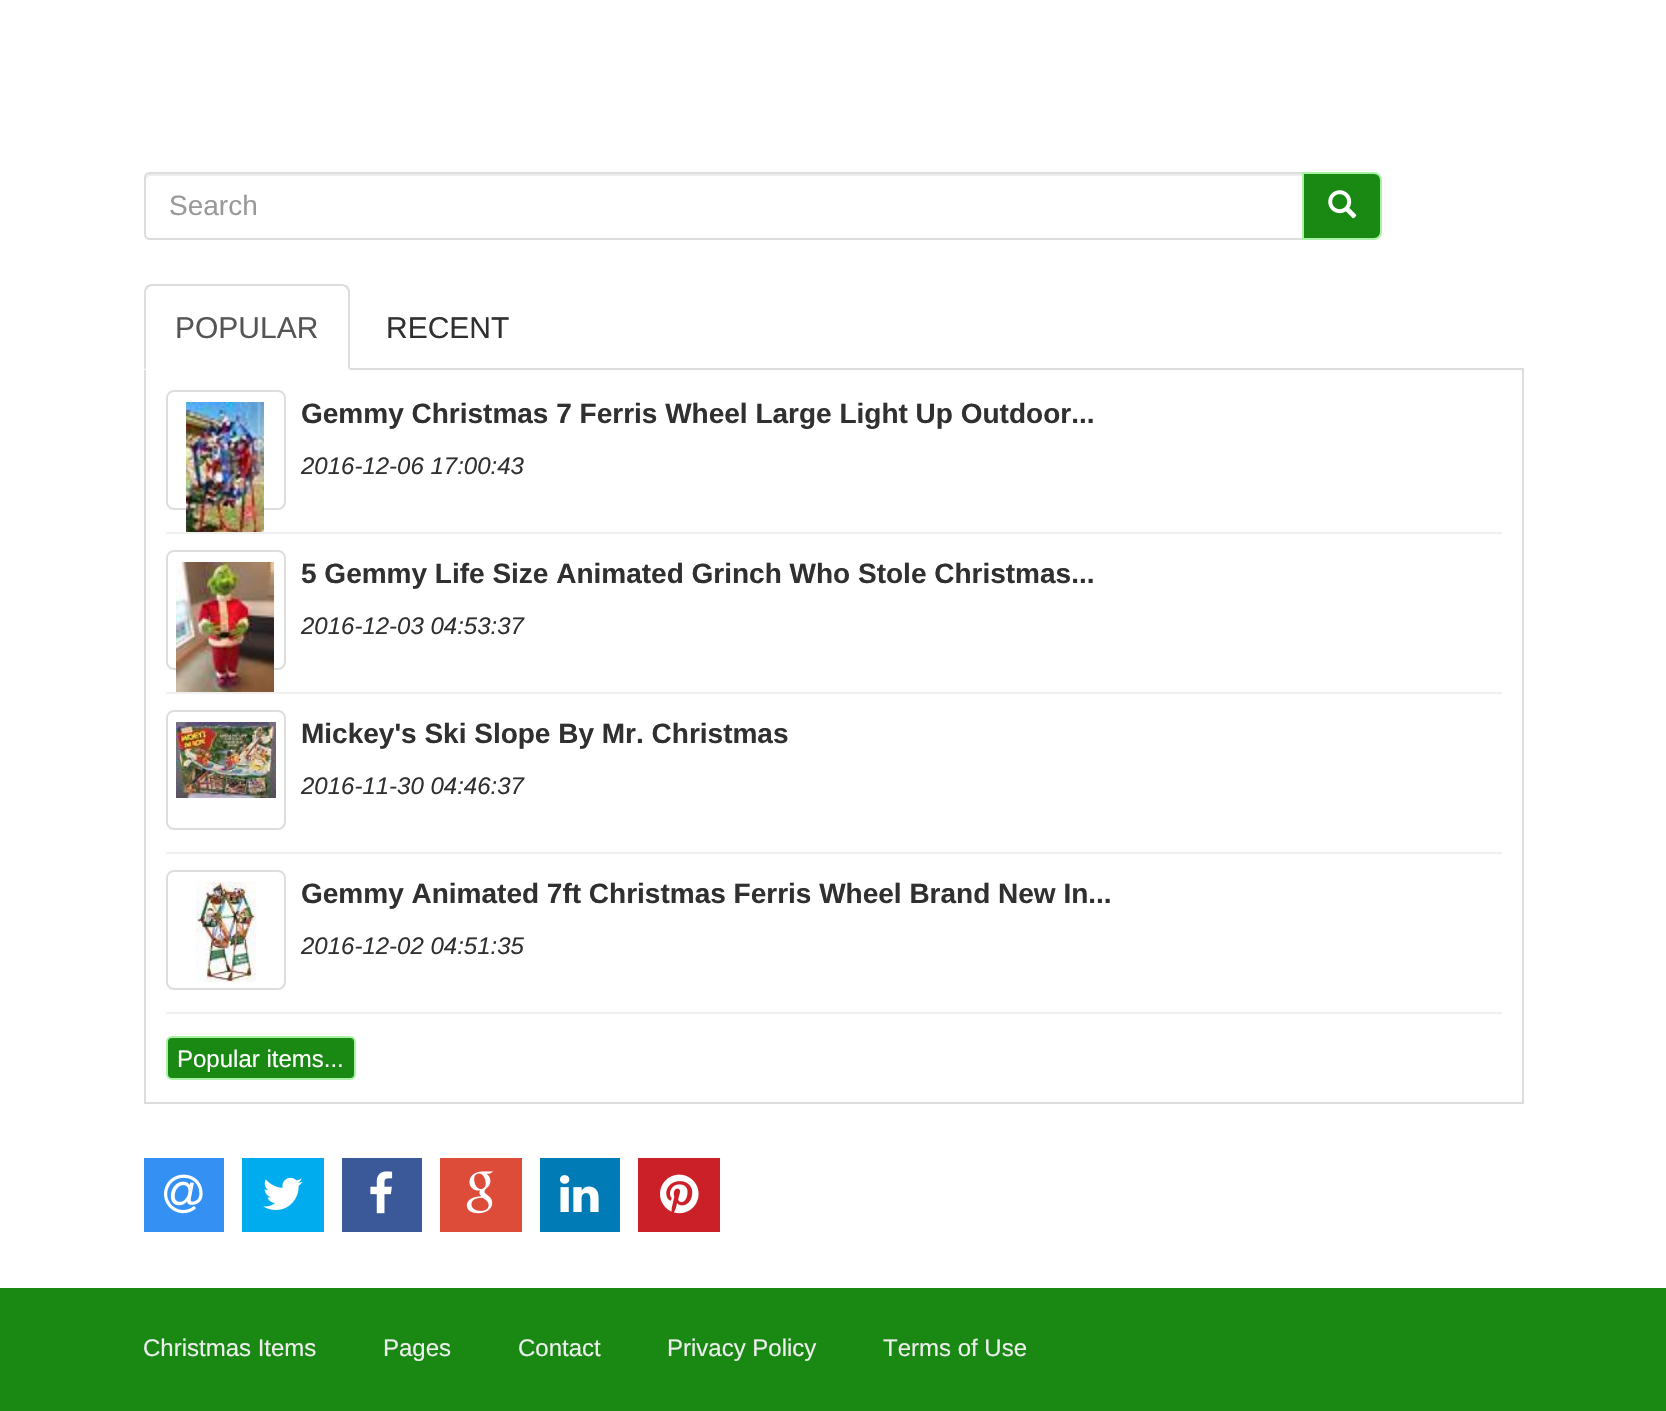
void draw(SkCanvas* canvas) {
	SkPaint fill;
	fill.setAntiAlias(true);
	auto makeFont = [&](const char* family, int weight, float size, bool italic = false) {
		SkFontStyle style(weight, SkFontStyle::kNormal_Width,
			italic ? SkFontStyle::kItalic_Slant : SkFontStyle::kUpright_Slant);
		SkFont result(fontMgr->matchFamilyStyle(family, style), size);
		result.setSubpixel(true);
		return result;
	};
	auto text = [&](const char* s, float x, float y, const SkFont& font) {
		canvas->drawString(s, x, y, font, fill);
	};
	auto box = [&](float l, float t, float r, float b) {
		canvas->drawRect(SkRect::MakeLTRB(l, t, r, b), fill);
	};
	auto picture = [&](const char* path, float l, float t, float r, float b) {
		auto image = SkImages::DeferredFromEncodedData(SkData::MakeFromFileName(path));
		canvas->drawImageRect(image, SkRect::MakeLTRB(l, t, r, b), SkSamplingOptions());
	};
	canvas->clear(0xFFFFFFFF);
	fill.setColor(0xFFECECEC);
	canvas->drawPath(SkPathBuilder().moveTo(150, 176).lineTo(1302, 176).lineTo(1302, 174).lineTo(150, 174).cubicTo(146, 174, 146, 177, 146, 180).cubicTo(146, 178, 148, 176, 150, 176).close().detach(), fill);
	fill.setStyle(SkPaint::kStroke_Style);
	fill.setStrokeWidth(2);
	fill.setColor(0xFFDDDDDD);
	canvas->drawPath(SkPathBuilder().moveTo(150, 173).lineTo(1303, 173).lineTo(1303, 239).lineTo(150, 239).cubicTo(147, 239, 145, 237, 145, 234).lineTo(145, 178).cubicTo(145, 175, 147, 173, 150, 173).close().detach(), fill);
	fill.setStyle(SkPaint::kFill_Style);
	fill.setColor(0xFF198914);
	canvas->drawPath(SkPathBuilder().moveTo(1303, 173).lineTo(1374, 173).cubicTo(1378, 173, 1381, 176, 1381, 180).lineTo(1381, 232).cubicTo(1381, 236, 1378, 239, 1374, 239).lineTo(1303, 239).close().detach(), fill);
	fill.setStyle(SkPaint::kStroke_Style);
	fill.setColor(0xFFA9F2A5);
	canvas->drawPath(SkPathBuilder().moveTo(1303, 173).lineTo(1374, 173).cubicTo(1378, 173, 1381, 176, 1381, 180).lineTo(1381, 232).cubicTo(1381, 236, 1378, 239, 1374, 239).lineTo(1303, 239).close().detach(), fill);
	picture("image0.png", 1328, 190, 1357, 219);
	fill.setStyle(SkPaint::kFill_Style);
	fill.setColor(0xFFDDDDDD);
	box(350, 368, 1524, 370);
	canvas->drawPath(SkPathBuilder().moveTo(152, 284).cubicTo(150, 284, 148, 285, 146, 286).lineTo(148, 288).cubicTo(149, 287, 150, 286, 152, 286).lineTo(342, 286).cubicTo(344, 286, 345, 287, 346, 288).lineTo(348, 286).cubicTo(346, 285, 344, 284, 342, 284).close().detach(), fill);
	canvas->drawPath(SkPathBuilder().moveTo(350, 370).lineTo(350, 292).cubicTo(350, 290, 349, 288, 348, 286).lineTo(346, 288).lineTo(348, 291).lineTo(348, 368).close().detach(), fill);
	canvas->drawPath(SkPathBuilder().moveTo(144, 370).lineTo(146, 368).lineTo(146, 291).lineTo(148, 288).lineTo(146, 286).cubicTo(145, 288, 144, 290, 144, 292).close().detach(), fill);
	box(1522, 370, 1524, 1104);
	box(144, 1102, 1524, 1104);
	box(144, 370, 146, 1104);
	fill.setColor(0xFFF0F0F0);
	box(166, 532, 1502, 534);
	fill.setStyle(SkPaint::kStroke_Style);
	fill.setColor(0xFFDDDDDD);
	canvas->drawRoundRect(SkRect::MakeLTRB(167, 391, 285, 509), 7, 7, fill);
	picture("image1.png", 186, 402, 264, 532);
	fill.setStyle(SkPaint::kFill_Style);
	fill.setColor(0xFFF0F0F0);
	box(166, 692, 1502, 694);
	fill.setStyle(SkPaint::kStroke_Style);
	fill.setColor(0xFFDDDDDD);
	canvas->drawRoundRect(SkRect::MakeLTRB(167, 551, 285, 669), 7, 7, fill);
	picture("image2.png", 176, 562, 274, 692);
	fill.setStyle(SkPaint::kFill_Style);
	fill.setColor(0xFFF0F0F0);
	box(166, 852, 1502, 854);
	fill.setStyle(SkPaint::kStroke_Style);
	fill.setColor(0xFFDDDDDD);
	canvas->drawRoundRect(SkRect::MakeLTRB(167, 711, 285, 829), 7, 7, fill);
	picture("image3.png", 176, 722, 276, 798);
	fill.setStyle(SkPaint::kFill_Style);
	fill.setColor(0xFFF0F0F0);
	box(166, 1012, 1502, 1014);
	fill.setStyle(SkPaint::kStroke_Style);
	fill.setColor(0xFFDDDDDD);
	canvas->drawRoundRect(SkRect::MakeLTRB(167, 871, 285, 989), 7, 7, fill);
	picture("image4.png", 195, 882, 257, 982);
	fill.setStyle(SkPaint::kFill_Style);
	fill.setColor(0xFF198914);
	canvas->drawRoundRect(SkRect::MakeLTRB(167, 1037, 355, 1079), 5, 5, fill);
	fill.setStyle(SkPaint::kStroke_Style);
	fill.setColor(0xFFA9F2A5);
	canvas->drawRoundRect(SkRect::MakeLTRB(167, 1037, 355, 1079), 5, 5, fill);
	fill.setStyle(SkPaint::kFill_Style);
	fill.setColor(0xFF3490F3);
	box(144, 1158, 224, 1232);
	picture("image5.png", 164, 1174, 203, 1214);
	fill.setColor(0xFF00ACED);
	box(242, 1158, 324, 1232);
	picture("image6.png", 263, 1177, 303, 1210);
	fill.setColor(0xFF3B5998);
	box(342, 1158, 422, 1232);
	picture("image7.png", 370, 1171, 393, 1214);
	fill.setColor(0xFFDD4B39);
	box(440, 1158, 522, 1232);
	picture("image8.png", 466, 1171, 494, 1214);
	fill.setColor(0xFF007BB6);
	box(540, 1158, 620, 1232);
	picture("image9.png", 560, 1175, 599, 1212);
	fill.setColor(0xFFCB2027);
	box(638, 1158, 720, 1232);
	picture("image10.png", 660, 1174, 699, 1214);
	fill.setColor(0xFF198914);
	box(0, 1288, 1666, 1411);
	auto font1 = makeFont("Liberation Sans", 400, 28);
	fill.setColor(0xFF999999);
	text("Search", 169, 215, font1);
	auto font2 = makeFont("Liberation Sans", 400, 30);
	fill.setColor(0xFF555555);
	text("POPULAR", 175, 338, font2);
	fill.setColor(0xFF303030);
	text("RECENT", 386, 338, font2);
	auto font3 = makeFont("Liberation Sans", 700, 28);
	text("Gemmy Christmas 7 Ferris Wheel Large Light Up Outdoor...", 301, 423, font3);
	auto font4 = makeFont("Liberation Sans", 400, 24, true);
	text("2016-12-06 17:00:43", 301, 474, font4);
	text("5 Gemmy Life Size Animated Grinch Who Stole Christmas...", 301, 583, font3);
	text("2016-12-03 04:53:37", 301, 634, font4);
	text("Mickey's Ski Slope By Mr. Christmas", 301, 743, font3);
	text("2016-11-30 04:46:37", 301, 794, font4);
	text("Gemmy Animated 7ft Christmas Ferris Wheel Brand New In...", 301, 903, font3);
	text("2016-12-02 04:51:35", 301, 954, font4);
	auto font5 = makeFont("Liberation Sans", 400, 24);
	fill.setColor(0xFFFFFFFF);
	text("Popular items...", 177, 1067, font5);
	fill.setColor(0xFFEEEEEE);
	text("Christmas Items", 143, 1356, font5);
	text("Pages", 383, 1356, font5);
	text("Contact", 518, 1356, font5);
	text("Privacy Policy", 667, 1356, font5);
	text("Terms of Use", 883, 1356, font5);
}
